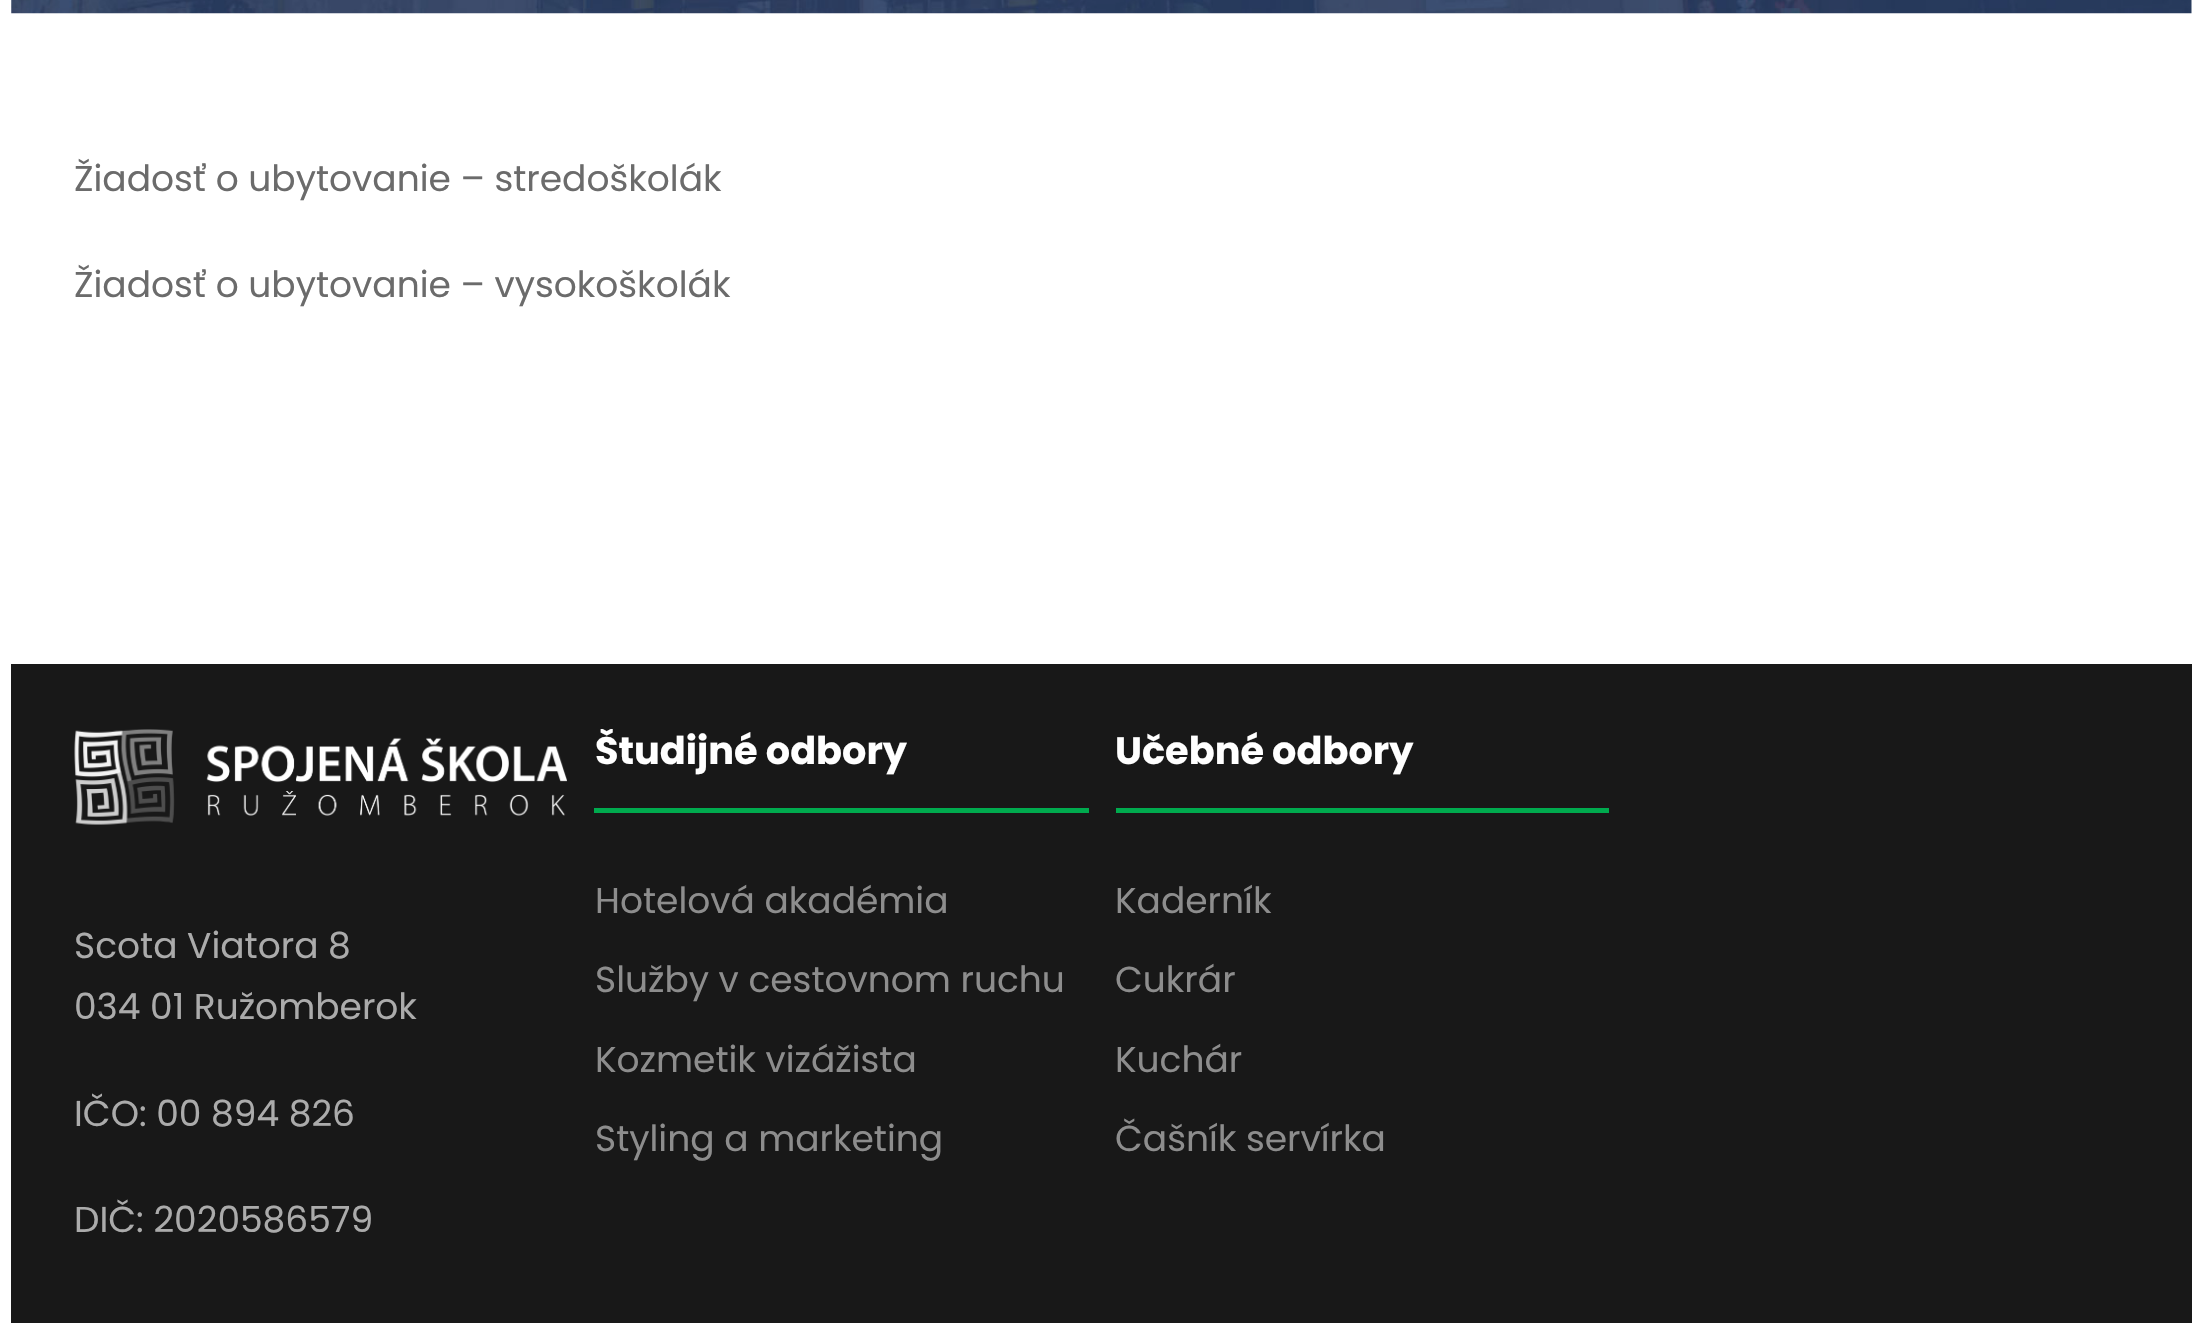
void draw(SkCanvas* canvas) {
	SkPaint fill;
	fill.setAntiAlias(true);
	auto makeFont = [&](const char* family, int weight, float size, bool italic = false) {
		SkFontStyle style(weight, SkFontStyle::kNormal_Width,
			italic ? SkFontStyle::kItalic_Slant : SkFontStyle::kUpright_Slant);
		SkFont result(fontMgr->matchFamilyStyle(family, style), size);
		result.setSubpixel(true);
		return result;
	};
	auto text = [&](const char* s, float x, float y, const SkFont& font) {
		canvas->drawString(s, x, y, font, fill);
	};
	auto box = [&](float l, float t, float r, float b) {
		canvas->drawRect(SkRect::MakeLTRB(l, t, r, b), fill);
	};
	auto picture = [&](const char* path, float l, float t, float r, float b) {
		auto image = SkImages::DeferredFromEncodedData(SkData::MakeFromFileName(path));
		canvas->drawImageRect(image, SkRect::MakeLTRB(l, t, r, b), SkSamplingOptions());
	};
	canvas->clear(0xFFFFFFFF);
	picture("image0.png", 11, 0, 2192, 14);
	fill.setColor(0xFF181818);
	box(11, 664, 2192, 1323);
	picture("image1.png", 74, 729, 567, 825);
	fill.setColor(0xFF00AA4E);
	box(594, 808, 1089, 813);
	box(1116, 808, 1609, 813);
	auto font1 = makeFont("Poppins", 400, 36);
	fill.setColor(0xFF6B6B6B);
	text("Žiadosť o ubytovanie – stredoškolák", 74, 191, font1);
	text("Žiadosť o ubytovanie – vysokoškolák", 74, 297, font1);
	fill.setColor(0xFFABABAB);
	text("Scota Viatora 8", 74, 958, font1);
	text("034 01 Ružomberok", 74, 1019, font1);
	text("IČO: 00 894 826", 74, 1126, font1);
	text("DIČ: 2020586579", 74, 1232, font1);
	canvas->save();
	canvas->clipRect(SkRect::MakeLTRB(11, 729, 2192, 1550));
	auto font2 = makeFont("Poppins", 700, 38.25f);
	fill.setColor(0xFFFFFFFF);
	text("Študijné odbory", 595, 764, font2);
	canvas->restore();
	fill.setColor(0xFF8D8D8D);
	text("Hotelová akadémia", 595, 913, font1);
	text("Služby v cestovnom ruchu", 595, 992, font1);
	text("Kozmetik vizážista", 595, 1072, font1);
	text("Styling a marketing", 595, 1151, font1);
	fill.setColor(0xFFFFFFFF);
	text("Učebné odbory", 1115, 764, font2);
	fill.setColor(0xFF8D8D8D);
	text("Kaderník", 1115, 913, font1);
	text("Cukrár", 1115, 992, font1);
	text("Kuchár", 1115, 1072, font1);
	text("Čašník servírka", 1115, 1151, font1);
}
